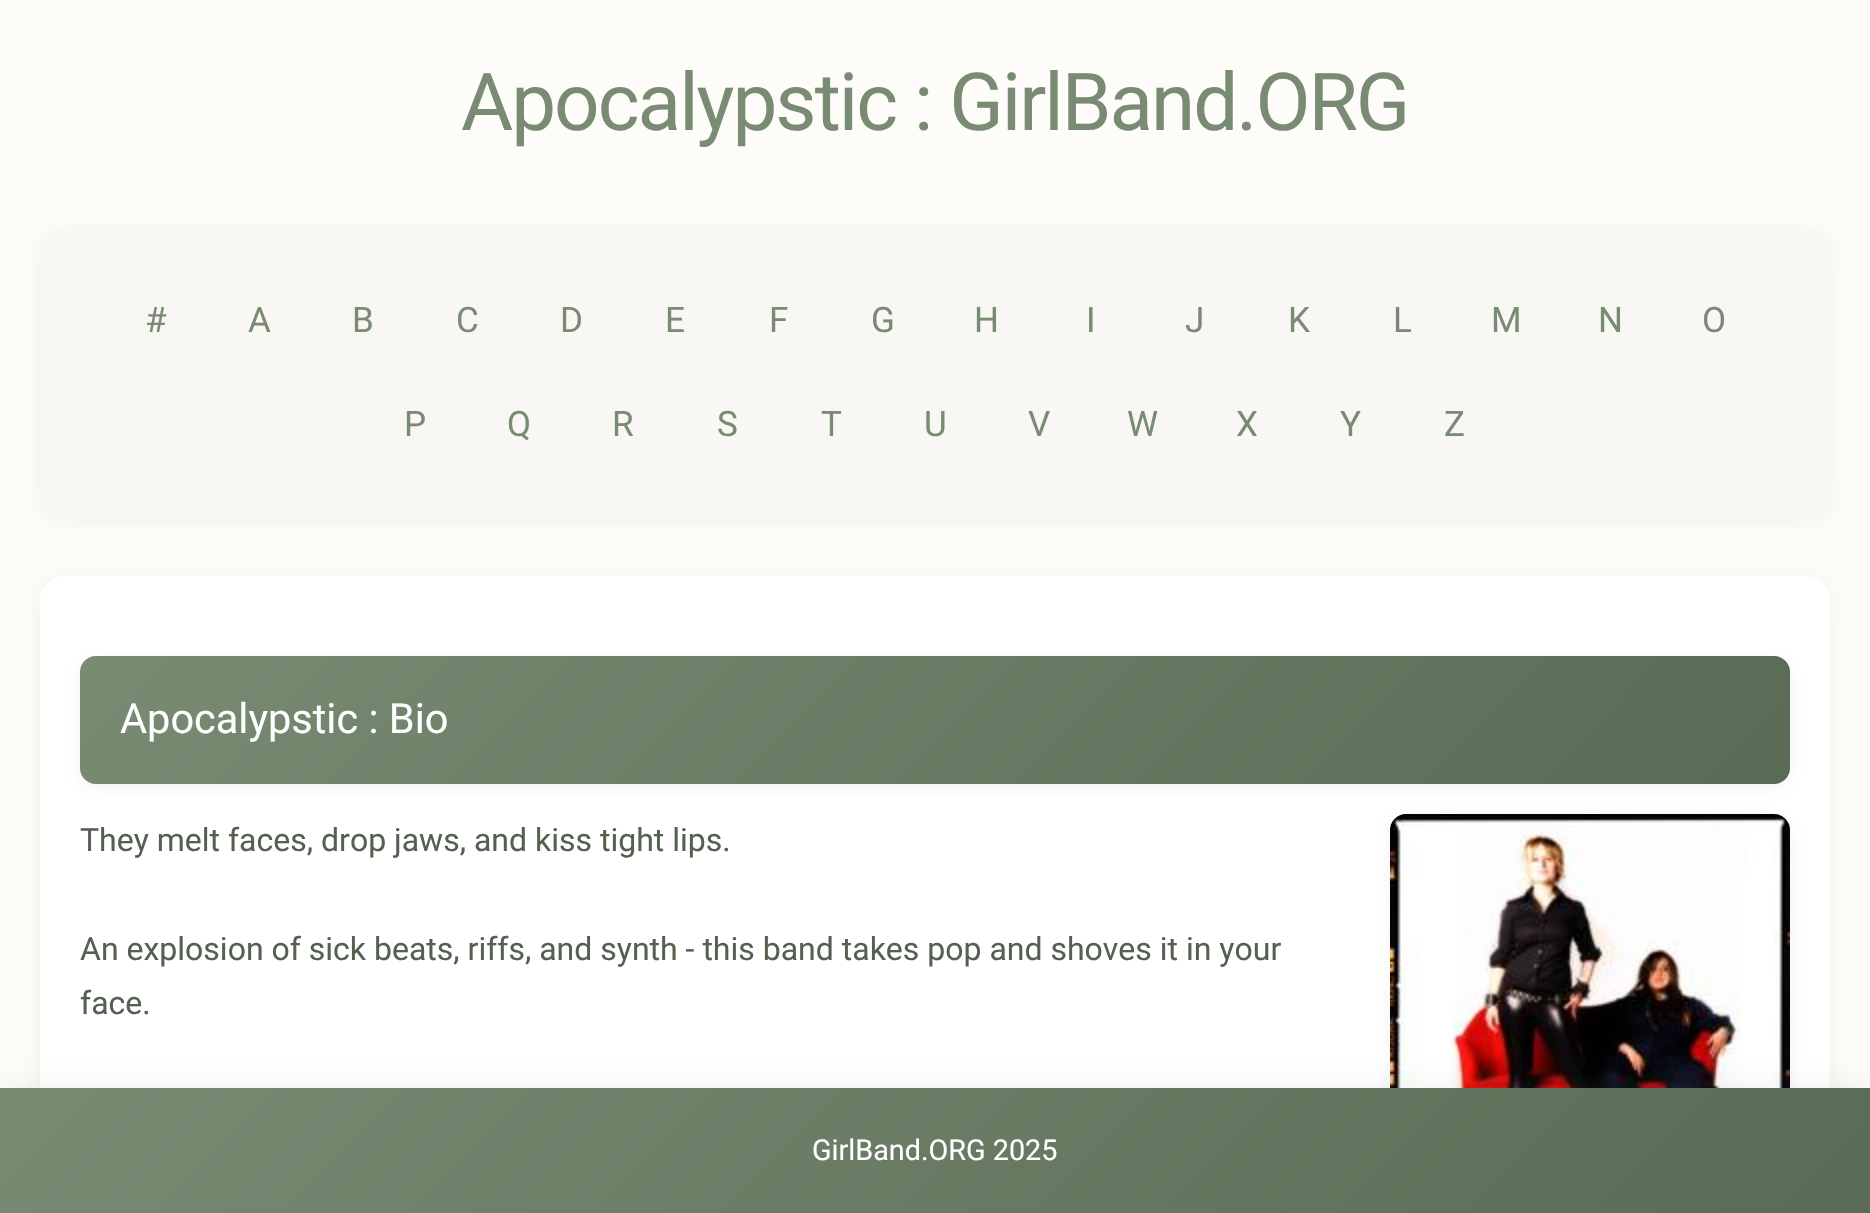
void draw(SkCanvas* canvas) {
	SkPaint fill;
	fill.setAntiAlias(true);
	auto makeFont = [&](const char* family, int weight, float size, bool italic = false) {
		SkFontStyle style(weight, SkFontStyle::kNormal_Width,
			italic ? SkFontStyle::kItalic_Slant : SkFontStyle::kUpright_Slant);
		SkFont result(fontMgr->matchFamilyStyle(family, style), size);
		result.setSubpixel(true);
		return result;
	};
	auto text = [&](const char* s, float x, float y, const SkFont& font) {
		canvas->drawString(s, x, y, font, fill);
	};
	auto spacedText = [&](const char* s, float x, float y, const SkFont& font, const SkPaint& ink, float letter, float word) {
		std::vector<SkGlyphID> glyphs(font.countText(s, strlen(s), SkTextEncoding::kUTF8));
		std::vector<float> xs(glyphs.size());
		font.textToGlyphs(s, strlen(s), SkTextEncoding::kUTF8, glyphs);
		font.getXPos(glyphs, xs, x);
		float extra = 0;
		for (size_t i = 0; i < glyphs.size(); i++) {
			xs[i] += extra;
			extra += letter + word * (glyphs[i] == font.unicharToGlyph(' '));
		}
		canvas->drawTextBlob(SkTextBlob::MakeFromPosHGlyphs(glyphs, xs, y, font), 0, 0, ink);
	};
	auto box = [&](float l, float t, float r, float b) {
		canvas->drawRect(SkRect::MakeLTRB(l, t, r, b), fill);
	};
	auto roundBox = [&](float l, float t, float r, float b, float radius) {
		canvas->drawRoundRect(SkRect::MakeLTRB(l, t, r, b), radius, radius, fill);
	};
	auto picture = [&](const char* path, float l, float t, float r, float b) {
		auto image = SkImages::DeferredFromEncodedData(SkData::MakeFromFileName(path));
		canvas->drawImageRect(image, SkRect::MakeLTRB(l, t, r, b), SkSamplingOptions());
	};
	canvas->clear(0xFFFEFCF8);
	fill.setColor(0x1A798B73);
	fill.setMaskFilter(SkMaskFilter::MakeBlur(kNormal_SkBlurStyle, 12));
	canvas->drawRoundRect(SkRect::MakeLTRB(40, 232, 1830, 520), 24, 24, fill);
	fill.setMaskFilter(nullptr);
	fill.setColor(0xFFF9F7F3);
	roundBox(40, 228, 1830, 516, 24);
	fill.setColor(0x1A798B73);
	fill.setMaskFilter(SkMaskFilter::MakeBlur(kNormal_SkBlurStyle, 12));
	canvas->drawRoundRect(SkRect::MakeLTRB(40, 580, 1830, 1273), 24, 24, fill);
	fill.setMaskFilter(nullptr);
	fill.setColor(0xFFFFFFFF);
	roundBox(40, 576, 1830, 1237, 24);
	fill.setColor(0x1A798B73);
	fill.setMaskFilter(SkMaskFilter::MakeBlur(kNormal_SkBlurStyle, 8));
	canvas->drawRoundRect(SkRect::MakeLTRB(80, 660, 1790, 788), 16, 16, fill);
	fill.setMaskFilter(nullptr);
	{
		const SkColor colors[] = {0xFF798B73, 0xFF5A6B55};
		const float stops[] = {0, 1};
		const SkPoint ends[] = {{475, 261}, {1395, 1180}};
		fill.setShader(SkGradientShader::MakeLinear(ends, colors, stops, 2, SkTileMode::kClamp));
		fill.setAlpha(255);
	}
	roundBox(80, 656, 1790, 784, 16);
	fill.setShader(nullptr);
	fill.setColor(0x1A798B73);
	fill.setMaskFilter(SkMaskFilter::MakeBlur(kNormal_SkBlurStyle, 8));
	canvas->drawRoundRect(SkRect::MakeLTRB(1390, 818, 1790, 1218), 16, 16, fill);
	fill.setMaskFilter(nullptr);
	picture("image0.png", 1390, 814, 1790, 1088);
	fill.setMaskFilter(SkMaskFilter::MakeBlur(kNormal_SkBlurStyle, 12));
	canvas->drawRect(SkRect::MakeLTRB(0, 1084, 1870, 1210), fill);
	fill.setMaskFilter(nullptr);
	{
		const SkColor colors[] = {0xFF798B73, 0xFF5A6B55};
		const float stops[] = {0, 1};
		const SkPoint ends[] = {{436, 652}, {1434, 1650}};
		fill.setShader(SkGradientShader::MakeLinear(ends, colors, stops, 2, SkTileMode::kClamp));
		fill.setAlpha(255);
	}
	box(0, 1088, 1870, 1213);
	auto font1 = makeFont("Roboto", 400, 80);
	fill.setShader(nullptr);
	fill.setColor(0xFF798B73);
	spacedText("Apocalypstic : GirlBand.ORG", 461, 130, font1, fill, -2, 0);
	auto font2 = makeFont("Roboto", 400, 35);
	text("#", 145, 332, font2);
	text("A", 248, 332, font2);
	text("B", 352, 332, font2);
	text("C", 456, 332, font2);
	text("D", 560, 332, font2);
	text("E", 665, 332, font2);
	text("F", 769, 332, font2);
	text("G", 871, 332, font2);
	text("H", 974, 332, font2);
	text("I", 1086, 332, font2);
	text("J", 1185, 332, font2);
	text("K", 1288, 332, font2);
	text("L", 1393, 332, font2);
	text("M", 1491, 332, font2);
	text("N", 1598, 332, font2);
	text("O", 1702, 332, font2);
	text("P", 404, 436, font2);
	text("Q", 507, 436, font2);
	text("R", 612, 436, font2);
	text("S", 717, 436, font2);
	text("T", 821, 436, font2);
	text("U", 924, 436, font2);
	text("V", 1028, 436, font2);
	text("W", 1127, 436, font2);
	text("X", 1236, 436, font2);
	text("Y", 1340, 436, font2);
	text("Z", 1444, 436, font2);
	auto font3 = makeFont("Roboto", 400, 41.5f);
	fill.setColor(0xFFFFFFFF);
	text("Apocalypstic : Bio", 120, 733, font3);
	auto font4 = makeFont("Roboto", 400, 32);
	fill.setColor(0xFF546151);
	text("They melt faces, drop jaws, and kiss tight lips.", 80, 851, font4);
	text("An explosion of sick beats, riffs, and synth - this band takes pop and shoves it in your", 80, 960, font4);
	text("face.", 80, 1014, font4);
	auto font5 = makeFont("Roboto", 400, 28.75f);
	fill.setColor(0xFFFFFFFF);
	text("GirlBand.ORG 2025", 812, 1160, font5);
}
